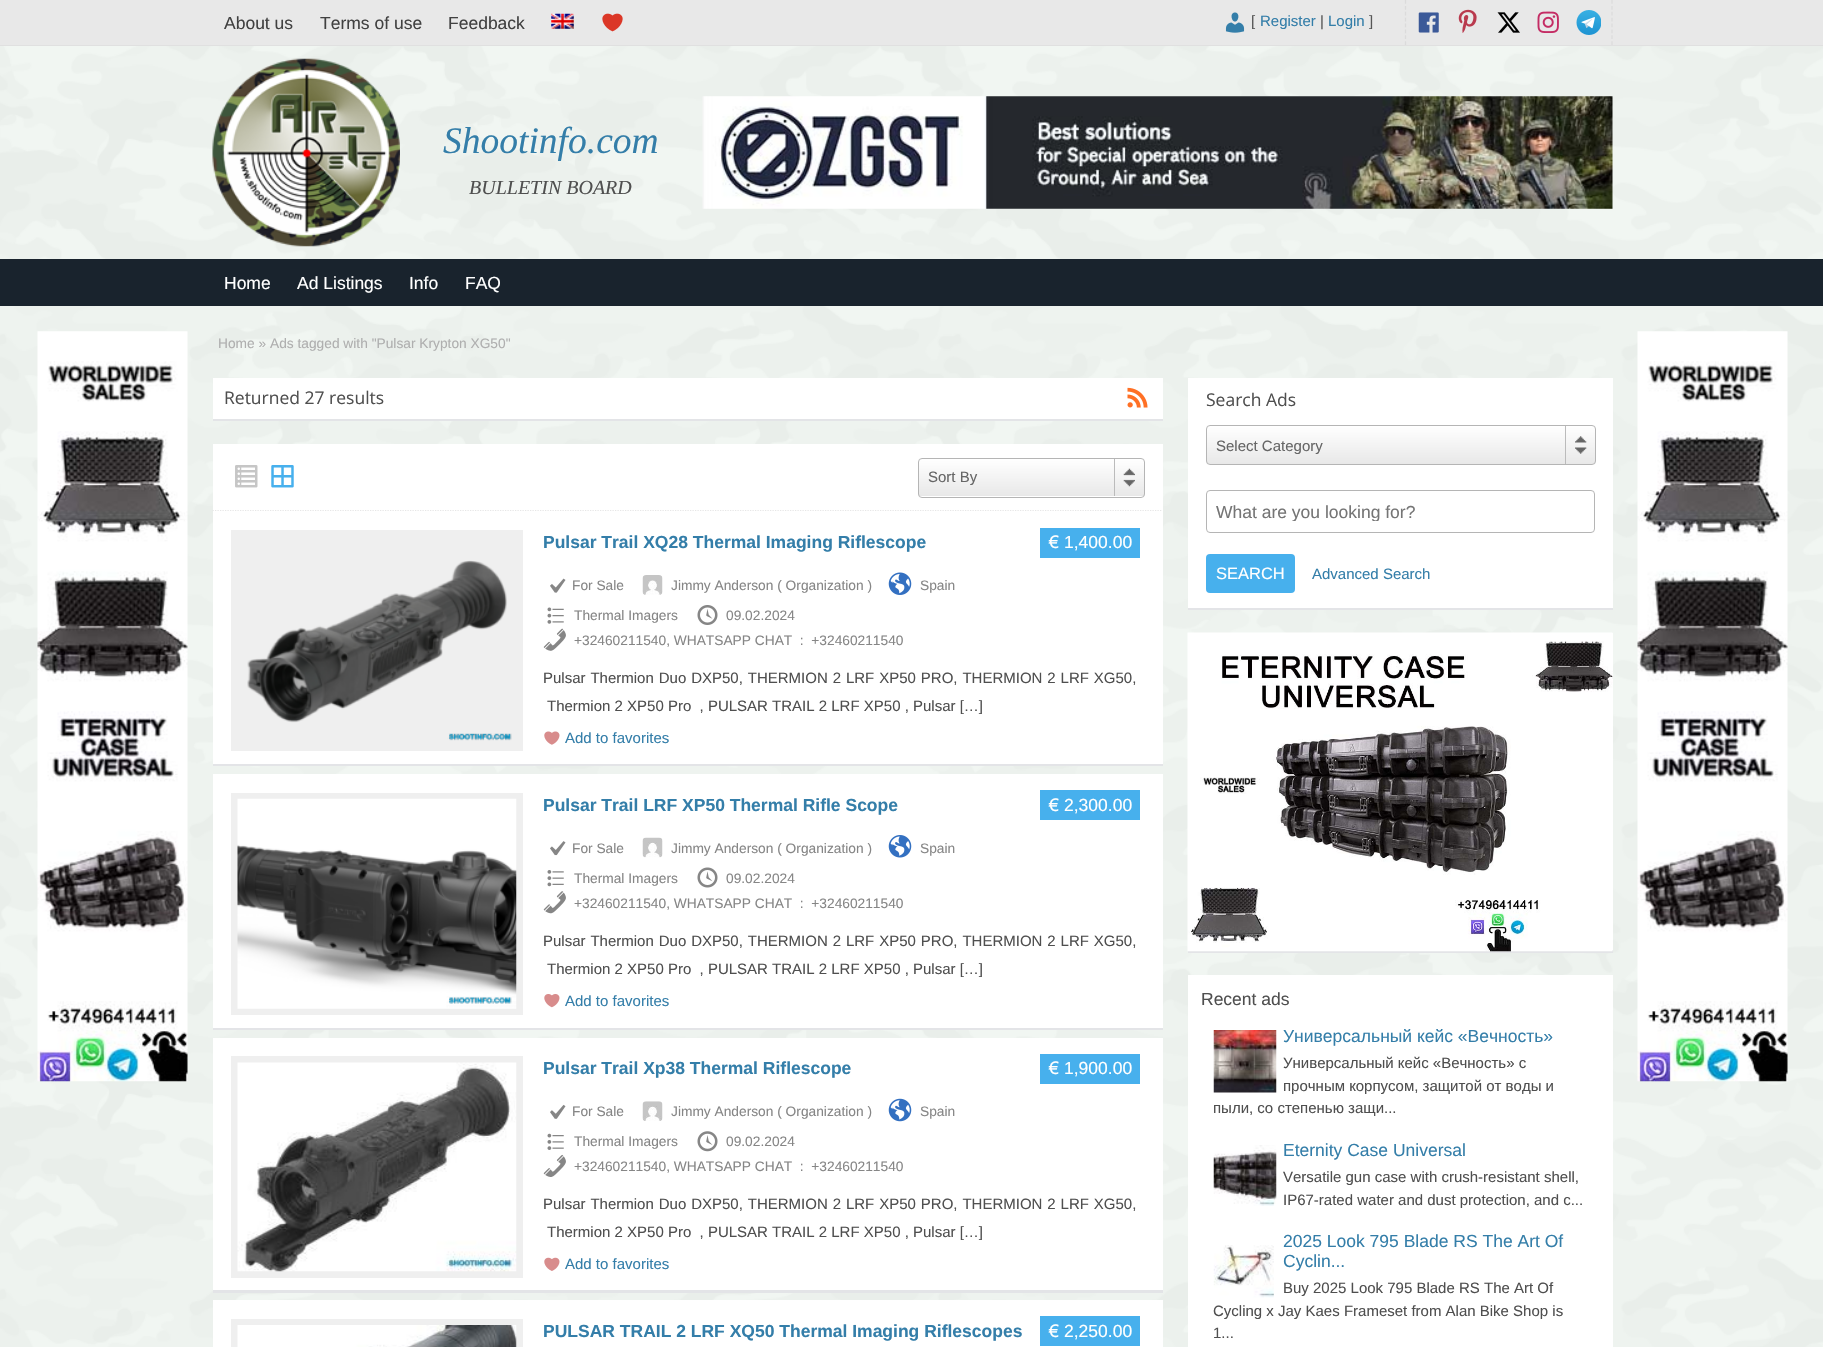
void draw(SkCanvas* canvas) {
	SkPaint fill;
	fill.setAntiAlias(true);
	auto makeFont = [&](const char* family, int weight, float size, bool italic = false) {
		SkFontStyle style(weight, SkFontStyle::kNormal_Width,
			italic ? SkFontStyle::kItalic_Slant : SkFontStyle::kUpright_Slant);
		SkFont result(fontMgr->matchFamilyStyle(family, style), size);
		result.setSubpixel(true);
		return result;
	};
	auto text = [&](const char* s, float x, float y, const SkFont& font) {
		canvas->drawString(s, x, y, font, fill);
	};
	auto spacedText = [&](const char* s, float x, float y, const SkFont& font, const SkPaint& ink, float letter, float word) {
		std::vector<SkGlyphID> glyphs(font.countText(s, strlen(s), SkTextEncoding::kUTF8));
		std::vector<float> xs(glyphs.size());
		font.textToGlyphs(s, strlen(s), SkTextEncoding::kUTF8, glyphs);
		font.getXPos(glyphs, xs, x);
		float extra = 0;
		for (size_t i = 0; i < glyphs.size(); i++) {
			xs[i] += extra;
			extra += letter + word * (glyphs[i] == font.unicharToGlyph(' '));
		}
		canvas->drawTextBlob(SkTextBlob::MakeFromPosHGlyphs(glyphs, xs, y, font), 0, 0, ink);
	};
	auto box = [&](float l, float t, float r, float b) {
		canvas->drawRect(SkRect::MakeLTRB(l, t, r, b), fill);
	};
	auto roundBox = [&](float l, float t, float r, float b, float radius) {
		canvas->drawRoundRect(SkRect::MakeLTRB(l, t, r, b), radius, radius, fill);
	};
	auto picture = [&](const char* path, float l, float t, float r, float b) {
		auto image = SkImages::DeferredFromEncodedData(SkData::MakeFromFileName(path));
		canvas->drawImageRect(image, SkRect::MakeLTRB(l, t, r, b), SkSamplingOptions());
	};
	canvas->clear(0xFFF3F8F4);
	picture("image0.png", 0, 46, 1823, 1347);
	fill.setColor(0xFFE8E8E8);
	box(0, 0, 1823, 45);
	fill.setColor(0xFFE0E0E0);
	box(0, 45, 1823, 46);
	picture("image1.png", 551, 13, 574, 29);
	picture("image2.png", 602, 13, 623, 32);
	picture("image3.png", 1225, 12, 1245, 33);
	fill.setStyle(SkPaint::kStroke_Style);
	fill.setStrokeWidth(1.2f);
	fill.setColor(0xFFDBDBDB);
	fill.setPathEffect(SkDashPathEffect::Make({{3.75f, 2.14f}}, 0));
	canvas->drawPath(SkPathBuilder().moveTo(1612, 0).lineTo(1612, 45).detach(), fill);
	fill.setPathEffect(nullptr);
	fill.setPathEffect(SkDashPathEffect::Make({{3.75f, 2.14f}}, 0));
	canvas->drawPath(SkPathBuilder().moveTo(1405.5f, 0).lineTo(1405.5f, 45).detach(), fill);
	fill.setPathEffect(nullptr);
	picture("image4.png", 1418, 12, 1439, 33);
	picture("image5.png", 1458, 9, 1477, 33);
	picture("image6.png", 1497, 12, 1520, 33);
	picture("image7.png", 1537, 11, 1559, 33);
	picture("image8.png", 1576, 10, 1601, 35);
	picture("image9.png", 212, 58, 400, 247);
	picture("image10.png", 702, 96, 1613, 209);
	fill.setStyle(SkPaint::kFill_Style);
	fill.setColor(0xFF19232D);
	box(0, 259, 1823, 306);
	picture("image11.png", 37, 331, 188, 1082);
	picture("image12.png", 1637, 331, 1788, 1082);
	fill.setColor(0xFFE3E4E7);
	canvas->drawPath(SkPathBuilder().moveTo(213, 419).lineTo(213, 421).lineTo(1163, 421).lineTo(1163, 380).lineTo(1162, 380).lineTo(1162, 419).close().detach(), fill);
	fill.setColor(0xFFFFFFFF);
	box(213, 378, 1163, 419);
	picture("image13.png", 1127, 387, 1148, 408);
	box(213, 510, 1163, 511);
	fill.setStyle(SkPaint::kStroke_Style);
	fill.setColor(0xFFE6E6E6);
	fill.setPathEffect(SkDashPathEffect::Make({{1.25f, 1.25f}}, 0));
	canvas->drawPath(SkPathBuilder().moveTo(212.5f, 510.5f).lineTo(1162.5f, 510.5f).detach(), fill);
	fill.setPathEffect(nullptr);
	fill.setStyle(SkPaint::kFill_Style);
	fill.setColor(0xFFFFFFFF);
	box(213, 444, 1163, 510);
	picture("image14.png", 235, 465, 258, 488);
	picture("image15.png", 271, 465, 294, 488);
	canvas->save();
	canvas->clipPath(SkPathBuilder().moveTo(922, 458).lineTo(1141, 458).cubicTo(1143, 458, 1145, 460, 1145, 462).lineTo(1145, 494).cubicTo(1145, 496, 1143, 498, 1141, 498).lineTo(922, 498).cubicTo(920, 498, 918, 496, 918, 494).lineTo(918, 462).cubicTo(918, 460, 920, 458, 922, 458).close().detach(), true);
	{
		const SkColor colors[] = {0xFFFFFFFF, 0xFFE8E8E8};
		const float stops[] = {0, 1};
		const SkPoint ends[] = {{1031, 459}, {1031, 496}};
		fill.setShader(SkGradientShader::MakeLinear(ends, colors, stops, 2, SkTileMode::kClamp));
		fill.setAlpha(255);
	}
	box(918, 459, 1145, 496);
	canvas->restore();
	fill.setStyle(SkPaint::kStroke_Style);
	fill.setStrokeWidth(1);
	fill.setShader(nullptr);
	fill.setColor(0xFFB5B5B5);
	canvas->drawRoundRect(SkRect::MakeLTRB(918.5f, 458.5f, 1144.5f, 497.5f), 3.5f, 3.5f, fill);
	picture("image16.png", 1123, 468, 1135, 487);
	fill.setStyle(SkPaint::kFill_Style);
	fill.setColor(0xFFBBBBBB);
	box(1114, 459, 1115, 496);
	fill.setColor(0xFFE3E4E7);
	canvas->drawPath(SkPathBuilder().moveTo(213, 764).lineTo(213, 766).lineTo(1163, 766).lineTo(1163, 514).lineTo(1162, 514).lineTo(1162, 764).close().detach(), fill);
	fill.setColor(0xFFFFFFFF);
	box(213, 511, 1163, 764);
	fill.setColor(0xFFEFEFEF);
	box(231, 530, 523, 751);
	picture("image17.png", 247, 560, 512, 741);
	fill.setColor(0xFF47B0ED);
	box(1040, 528, 1140, 558);
	picture("image18.png", 550, 578, 566, 593);
	picture("image19.png", 642, 575, 663, 595);
	picture("image20.png", 888, 572, 912, 595);
	picture("image21.png", 547, 607, 564, 624);
	picture("image22.png", 697, 605, 718, 625);
	picture("image23.png", 543, 628, 566, 651);
	picture("image24.png", 544, 731, 560, 745);
	fill.setColor(0xFFE3E4E7);
	canvas->drawPath(SkPathBuilder().moveTo(213, 1028).lineTo(213, 1030).lineTo(1163, 1030).lineTo(1163, 776).lineTo(1162, 776).lineTo(1162, 1028).close().detach(), fill);
	fill.setColor(0xFFFFFFFF);
	box(213, 774, 1163, 1028);
	fill.setColor(0xFFEFEFEF);
	box(231, 793, 523, 1015);
	picture("image25.png", 237, 798, 517, 1009);
	fill.setColor(0xFF47B0ED);
	box(1040, 790, 1140, 820);
	picture("image26.png", 550, 841, 566, 856);
	picture("image27.png", 642, 837, 663, 858);
	picture("image28.png", 888, 835, 912, 858);
	picture("image29.png", 547, 870, 564, 887);
	picture("image30.png", 697, 867, 718, 888);
	picture("image31.png", 543, 891, 566, 914);
	picture("image32.png", 544, 994, 560, 1008);
	fill.setColor(0xFFE3E4E7);
	canvas->drawPath(SkPathBuilder().moveTo(213, 1290).lineTo(213, 1293).lineTo(1163, 1293).lineTo(1163, 1040).lineTo(1162, 1040).lineTo(1162, 1290).close().detach(), fill);
	fill.setColor(0xFFFFFFFF);
	box(213, 1038, 1163, 1290);
	fill.setColor(0xFFEFEFEF);
	box(231, 1056, 523, 1278);
	picture("image33.png", 237, 1062, 517, 1272);
	fill.setColor(0xFF47B0ED);
	box(1040, 1054, 1140, 1084);
	picture("image34.png", 550, 1104, 566, 1119);
	picture("image35.png", 642, 1101, 663, 1121);
	picture("image36.png", 888, 1098, 912, 1122);
	picture("image37.png", 547, 1133, 564, 1150);
	picture("image38.png", 697, 1131, 718, 1152);
	picture("image39.png", 543, 1154, 566, 1177);
	picture("image40.png", 544, 1257, 560, 1271);
	fill.setColor(0xFFFFFFFF);
	box(213, 1300, 1163, 1347);
	fill.setColor(0xFFEFEFEF);
	box(231, 1319, 523, 1347);
	picture("image41.png", 237, 1325, 517, 1347);
	fill.setColor(0xFF47B0ED);
	box(1040, 1316, 1140, 1346);
	fill.setColor(0xFFE3E4E7);
	canvas->drawPath(SkPathBuilder().moveTo(1188, 608).lineTo(1188, 610).lineTo(1613, 610).lineTo(1613, 380).lineTo(1612, 380).lineTo(1612, 608).close().detach(), fill);
	fill.setColor(0xFFFFFFFF);
	box(1188, 378, 1613, 608);
	canvas->save();
	canvas->clipPath(SkPathBuilder().moveTo(1210, 425).lineTo(1592, 425).cubicTo(1594, 425, 1596, 427, 1596, 429).lineTo(1596, 461).cubicTo(1596, 463, 1594, 465, 1592, 465).lineTo(1210, 465).cubicTo(1208, 465, 1206, 463, 1206, 461).lineTo(1206, 429).cubicTo(1206, 427, 1208, 425, 1210, 425).close().detach(), true);
	{
		const SkColor colors[] = {0xFFFFFFFF, 0xFFE8E8E8};
		const float stops[] = {0, 1};
		const SkPoint ends[] = {{1401, 426}, {1401, 464}};
		fill.setShader(SkGradientShader::MakeLinear(ends, colors, stops, 2, SkTileMode::kClamp));
		fill.setAlpha(255);
	}
	box(1206, 426, 1596, 464);
	canvas->restore();
	fill.setStyle(SkPaint::kStroke_Style);
	fill.setShader(nullptr);
	fill.setColor(0xFFB5B5B5);
	canvas->drawRoundRect(SkRect::MakeLTRB(1206.5f, 425.5f, 1595.5f, 464.5f), 3.5f, 3.5f, fill);
	picture("image42.png", 1575, 436, 1587, 454);
	fill.setStyle(SkPaint::kFill_Style);
	fill.setColor(0xFFBBBBBB);
	box(1565, 426, 1566, 464);
	fill.setStyle(SkPaint::kStroke_Style);
	fill.setColor(0xFFB5B5B5);
	canvas->drawRoundRect(SkRect::MakeLTRB(1206.5f, 490.5f, 1594.5f, 532.5f), 3.5f, 3.5f, fill);
	fill.setStyle(SkPaint::kFill_Style);
	fill.setColor(0xFF47B0ED);
	roundBox(1206, 554, 1295, 593, 4);
	fill.setColor(0xFFE3E4E7);
	canvas->drawPath(SkPathBuilder().moveTo(1188, 950).lineTo(1188, 953).lineTo(1613, 953).lineTo(1613, 635).lineTo(1612, 635).lineTo(1612, 950).close().detach(), fill);
	fill.setColor(0xFFFFFFFF);
	box(1612, 633, 1613, 950);
	picture("image43.png", 1187, 632, 1613, 952);
	box(1188, 975, 1613, 1347);
	picture("image44.png", 1213, 1030, 1277, 1093);
	picture("image45.png", 1213, 1145, 1277, 1206);
	picture("image46.png", 1213, 1245, 1274, 1298);
	auto font1 = makeFont("Liberation Sans", 400, 17.5f);
	fill.setColor(0xFF414141);
	text("About us", 224, 29, font1);
	text("Terms of use", 320, 29, font1);
	text("Feedback", 448, 29, font1);
	auto font2 = makeFont("Liberation Sans", 400, 15);
	fill.setColor(0xFF565656);
	text("[", 1251, 26, font2);
	fill.setColor(0xFF347EA9);
	text("Register", 1260, 26, font2);
	fill.setColor(0xFF565656);
	text("|", 1320, 26, font2);
	fill.setColor(0xFF347EA9);
	text("Login", 1328, 26, font2);
	fill.setColor(0xFF565656);
	text("]", 1369, 26, font2);
	auto font3 = makeFont("Liberation Serif", 400, 37.5f, true);
	fill.setColor(0xFF347EA9);
	text("Shootinfo.com", 443, 153, font3);
	auto font4 = makeFont("Liberation Serif", 400, 20, true);
	fill.setColor(0xFF4F4F4F);
	text("BULLETIN BOARD", 469, 194, font4);
	fill.setColor(0xFFFFFFFF);
	text("Home", 224, 289, font1);
	text("Ad Listings", 297, 289, font1);
	text("Info", 409, 289, font1);
	text("FAQ", 465, 289, font1);
	auto font5 = makeFont("Liberation Sans", 400, 13.75f);
	fill.setColor(0xFFAFAFAF);
	text("Home » Ads tagged with \"Pulsar Krypton XG50\"", 218, 348, font5);
	auto font6 = makeFont("Open Sans", 400, 17.5f);
	fill.setColor(0xFF4F4F4F);
	text("Returned 27 results", 224, 404, font6);
	fill.setColor(0xFF666666);
	text("Sort By", 928, 482, font2);
	auto font7 = makeFont("Liberation Sans", 700, 17.5f);
	fill.setColor(0xFF347EA9);
	text("Pulsar Trail XQ28 Thermal Imaging Riflescope", 543, 548, font7);
	auto font8 = makeFont("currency", 400, 17.5f);
	fill.setColor(0xFFFFFFFF);
	text("€", 1049, 548, font8);
	text("1,400.00", 1064, 548, font1);
	fill.setColor(0xFF868686);
	text("For Sale", 572, 590, font5);
	text("Jimmy Anderson ( Organization )", 671, 590, font5);
	text("Spain", 920, 590, font5);
	text("Thermal Imagers", 574, 620, font5);
	text("09.02.2024", 726, 620, font5);
	text("+32460211540, WHATSAPP CHAT  :  +32460211540", 574, 645, font5);
	fill.setColor(0xFF4F4F4F);
	spacedText("Pulsar Thermion Duo DXP50, THERMION 2 LRF XP50 PRO, THERMION 2 LRF XG50,", 543, 683, font2, fill, 0, 0.75f);
	text("Thermion 2 XP50 Pro  , PULSAR TRAIL 2 LRF XP50 , Pulsar […]", 547, 711, font2);
	fill.setColor(0xFF347EA9);
	text("Add to favorites", 565, 743, font2);
	text("Pulsar Trail LRF XP50 Thermal Rifle Scope", 543, 811, font7);
	fill.setColor(0xFFFFFFFF);
	text("€", 1049, 811, font8);
	text("2,300.00", 1064, 811, font1);
	fill.setColor(0xFF868686);
	text("For Sale", 572, 853, font5);
	text("Jimmy Anderson ( Organization )", 671, 853, font5);
	text("Spain", 920, 853, font5);
	text("Thermal Imagers", 574, 883, font5);
	text("09.02.2024", 726, 883, font5);
	text("+32460211540, WHATSAPP CHAT  :  +32460211540", 574, 908, font5);
	fill.setColor(0xFF4F4F4F);
	spacedText("Pulsar Thermion Duo DXP50, THERMION 2 LRF XP50 PRO, THERMION 2 LRF XG50,", 543, 946, font2, fill, 0, 0.75f);
	text("Thermion 2 XP50 Pro  , PULSAR TRAIL 2 LRF XP50 , Pulsar […]", 547, 974, font2);
	fill.setColor(0xFF347EA9);
	text("Add to favorites", 565, 1006, font2);
	text("Pulsar Trail Xp38 Thermal Riflescope", 543, 1074, font7);
	fill.setColor(0xFFFFFFFF);
	text("€", 1049, 1074, font8);
	text("1,900.00", 1064, 1074, font1);
	fill.setColor(0xFF868686);
	text("For Sale", 572, 1116, font5);
	text("Jimmy Anderson ( Organization )", 671, 1116, font5);
	text("Spain", 920, 1116, font5);
	text("Thermal Imagers", 574, 1146, font5);
	text("09.02.2024", 726, 1146, font5);
	text("+32460211540, WHATSAPP CHAT  :  +32460211540", 574, 1171, font5);
	fill.setColor(0xFF4F4F4F);
	spacedText("Pulsar Thermion Duo DXP50, THERMION 2 LRF XP50 PRO, THERMION 2 LRF XG50,", 543, 1209, font2, fill, 0, 0.75f);
	text("Thermion 2 XP50 Pro  , PULSAR TRAIL 2 LRF XP50 , Pulsar […]", 547, 1237, font2);
	fill.setColor(0xFF347EA9);
	text("Add to favorites", 565, 1269, font2);
	text("PULSAR TRAIL 2 LRF XQ50 Thermal Imaging Riflescopes", 543, 1337, font7);
	fill.setColor(0xFFFFFFFF);
	text("€", 1049, 1337, font8);
	text("2,250.00", 1064, 1337, font1);
	fill.setColor(0xFF4F4F4F);
	text("Search Ads", 1206, 406, font6);
	fill.setColor(0xFF666666);
	text("Select Category", 1216, 451, font2);
	canvas->save();
	canvas->clipRect(SkRect::MakeLTRB(1216, 501, 1585, 521));
	fill.setColor(0xFF757575);
	text("What are you looking for?", 1216, 518, font1);
	canvas->restore();
	auto font9 = makeFont("Liberation Sans", 400, 16.5f);
	fill.setColor(0xFFFFFFFF);
	text("SEARCH", 1216, 579, font9);
	fill.setColor(0xFF347EA9);
	text("Advanced Search", 1312, 579, font2);
	fill.setColor(0xFF4F4F4F);
	text("Recent ads", 1201, 1005, font1);
	fill.setColor(0xFF347EA9);
	text("Универсальный кейс «Вечность»", 1283, 1042, font1);
	fill.setColor(0xFF4F4F4F);
	text("Универсальный кейс «Вечность» с", 1283, 1068, font2);
	text("прочным корпусом, защитой от воды и", 1283, 1091, font2);
	text("пыли, со степенью защи...", 1213, 1113, font2);
	fill.setColor(0xFF347EA9);
	text("Eternity Case Universal", 1283, 1156, font1);
	fill.setColor(0xFF4F4F4F);
	text("Versatile gun case with crush-resistant shell,", 1283, 1182, font2);
	text("IP67-rated water and dust protection, and c...", 1283, 1205, font2);
	fill.setColor(0xFF347EA9);
	text("2025 Look 795 Blade RS The Art Of", 1283, 1247, font1);
	text("Cyclin...", 1283, 1267, font1);
	fill.setColor(0xFF4F4F4F);
	text("Buy 2025 Look 795 Blade RS The Art Of", 1283, 1293, font2);
	text("Cycling x Jay Kaes Frameset from Alan Bike Shop is", 1213, 1316, font2);
	text("1...", 1213, 1338, font2);
}
